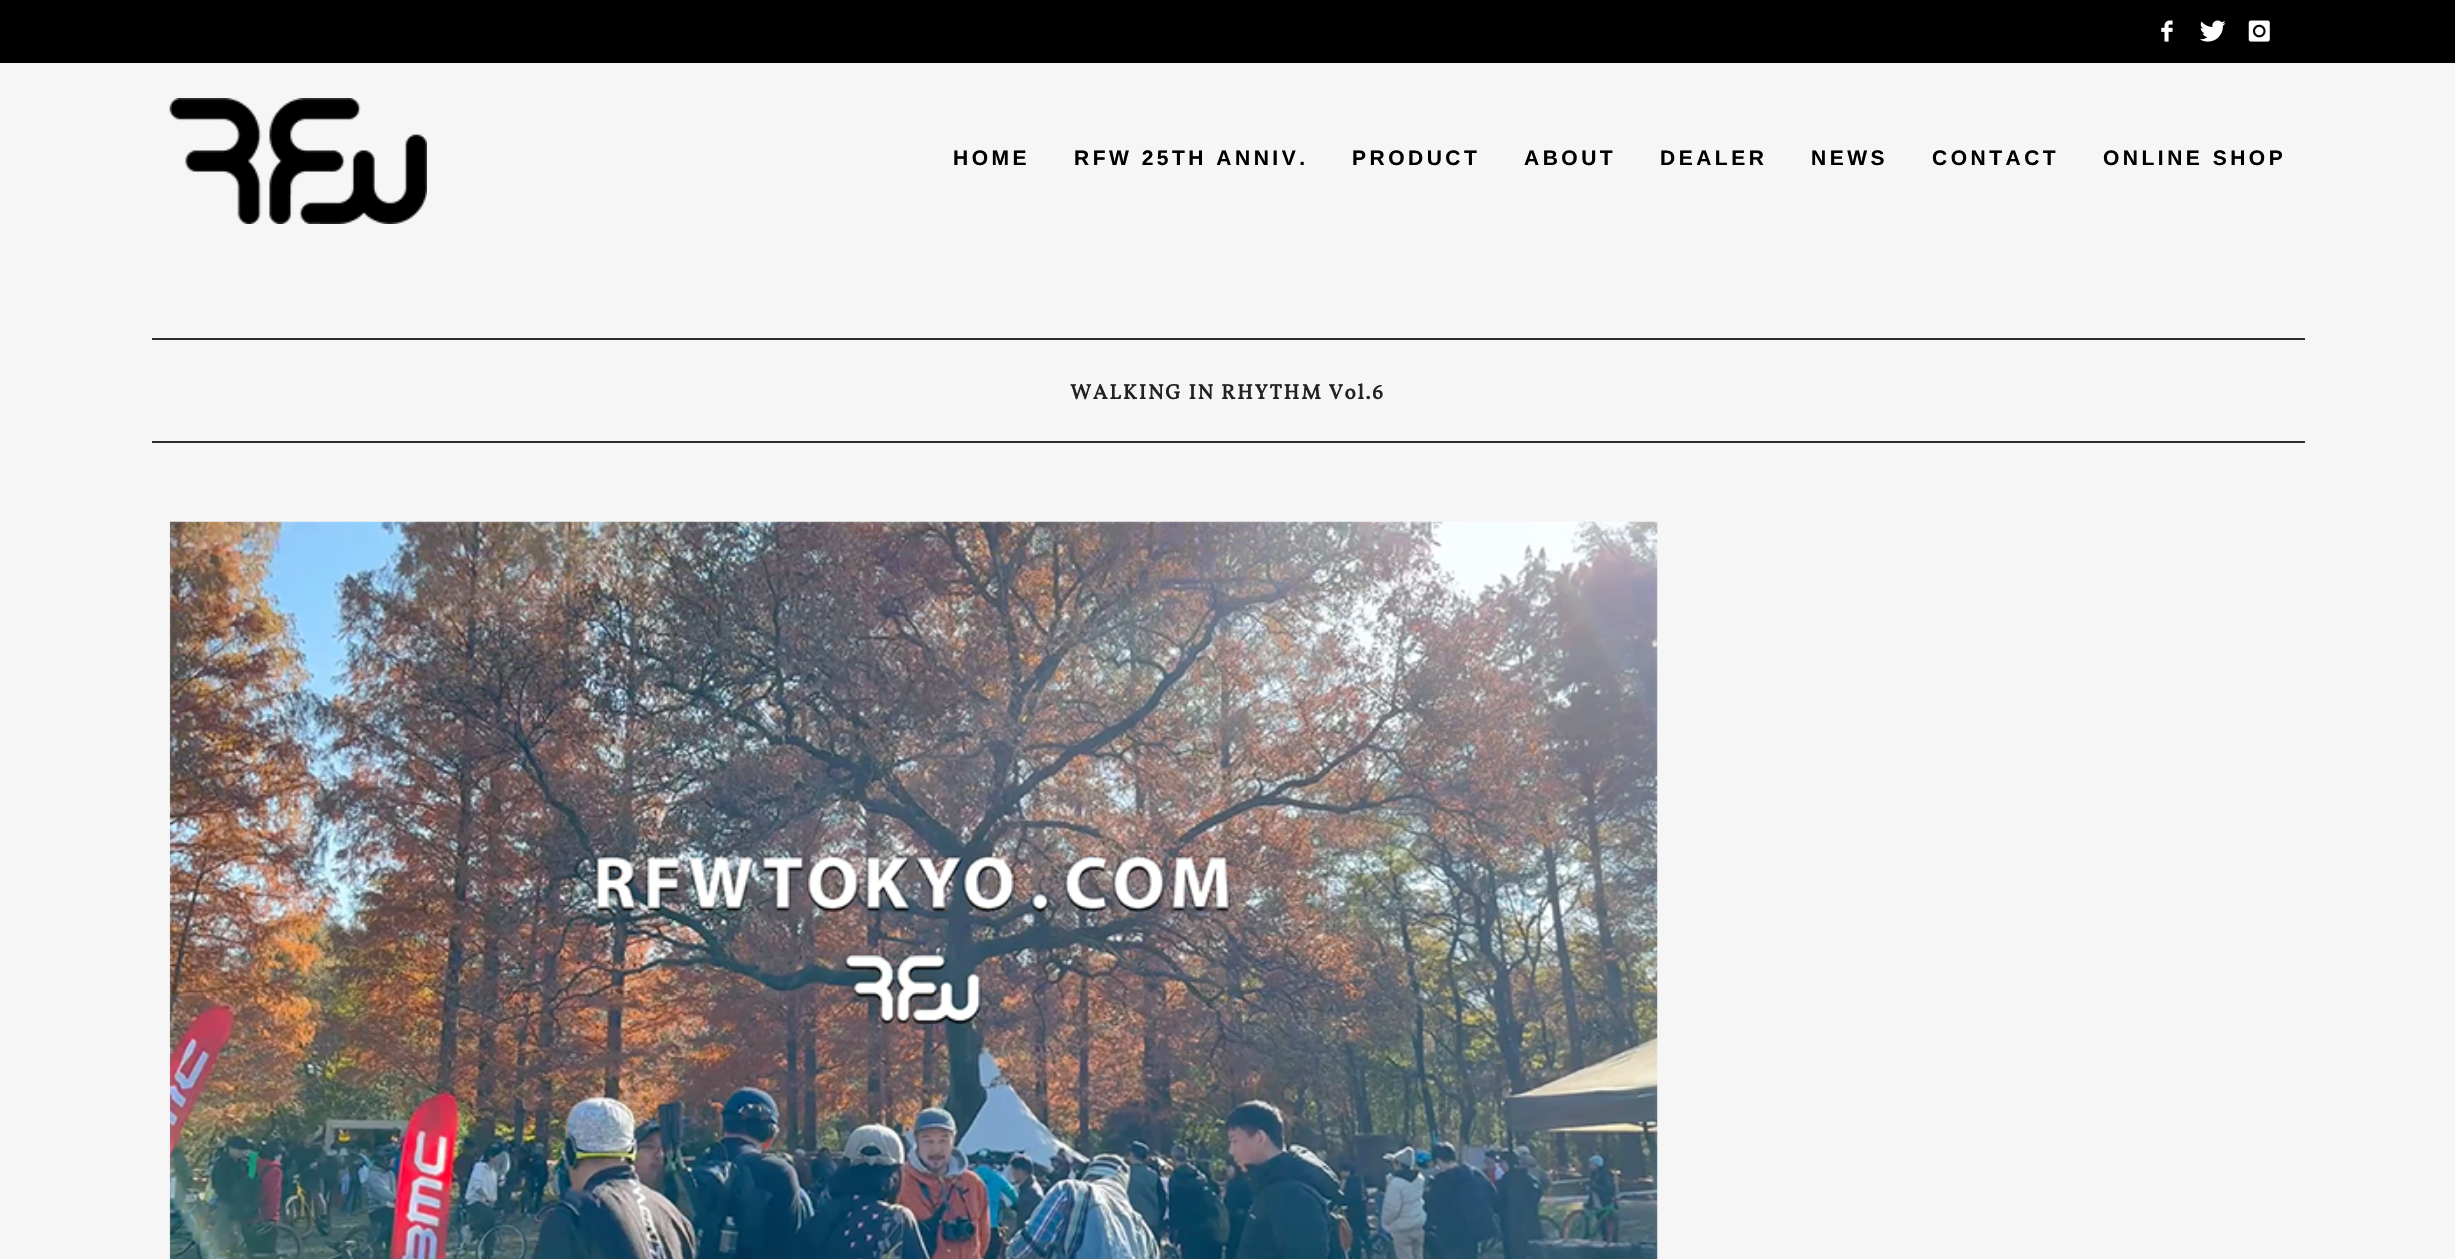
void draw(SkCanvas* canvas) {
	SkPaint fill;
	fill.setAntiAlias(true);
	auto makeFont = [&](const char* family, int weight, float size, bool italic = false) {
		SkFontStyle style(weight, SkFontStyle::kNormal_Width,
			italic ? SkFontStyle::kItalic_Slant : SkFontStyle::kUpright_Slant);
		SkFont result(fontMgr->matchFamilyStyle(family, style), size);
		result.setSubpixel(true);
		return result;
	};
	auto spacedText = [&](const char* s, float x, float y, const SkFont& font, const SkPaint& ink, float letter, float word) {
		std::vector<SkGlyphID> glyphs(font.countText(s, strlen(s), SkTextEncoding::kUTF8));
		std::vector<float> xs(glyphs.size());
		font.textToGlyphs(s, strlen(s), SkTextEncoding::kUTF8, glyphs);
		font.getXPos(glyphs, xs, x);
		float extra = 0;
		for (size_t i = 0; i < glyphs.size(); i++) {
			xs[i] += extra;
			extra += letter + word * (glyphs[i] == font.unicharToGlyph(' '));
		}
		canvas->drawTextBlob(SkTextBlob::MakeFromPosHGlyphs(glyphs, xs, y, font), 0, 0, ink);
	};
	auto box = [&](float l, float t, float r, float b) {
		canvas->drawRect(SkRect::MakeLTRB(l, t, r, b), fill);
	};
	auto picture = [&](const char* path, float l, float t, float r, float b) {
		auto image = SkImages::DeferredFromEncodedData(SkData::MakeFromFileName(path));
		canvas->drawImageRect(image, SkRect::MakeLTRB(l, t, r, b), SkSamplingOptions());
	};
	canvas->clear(0xFFF6F6F6);
	fill.setColor(0xFF000000);
	box(0, 0, 2455, 63);
	picture("image0.png", 2161, 20, 2173, 42);
	picture("image1.png", 2199, 20, 2226, 42);
	picture("image2.png", 2248, 20, 2270, 42);
	picture("image3.png", 169, 98, 427, 224);
	fill.setColor(0xFF2E2E2E);
	box(152, 338, 2305, 340);
	box(152, 441, 2305, 443);
	picture("image4.png", 169, 521, 1658, 1259);
	auto font1 = makeFont("Liberation Sans", 700, 21);
	fill.setColor(0xFF000000);
	spacedText("HOME", 953, 165, font1, fill, 3.5f, 0);
	spacedText("RFW 25TH ANNIV.", 1074, 165, font1, fill, 3.5f, 0);
	spacedText("PRODUCT", 1352, 165, font1, fill, 3.5f, 0);
	spacedText("ABOUT", 1524, 165, font1, fill, 3.5f, 0);
	spacedText("DEALER", 1660, 165, font1, fill, 3.5f, 0);
	spacedText("NEWS", 1811, 165, font1, fill, 3.5f, 0);
	spacedText("CONTACT", 1932, 165, font1, fill, 3.5f, 0);
	spacedText("ONLINE SHOP", 2103, 165, font1, fill, 3.5f, 0);
	auto font2 = makeFont("Vollkorn", 700, 21);
	fill.setColor(0xFF222222);
	spacedText("WALKING IN RHYTHM Vol.6", 1070, 399, font2, fill, 1.75f, 0);
}
